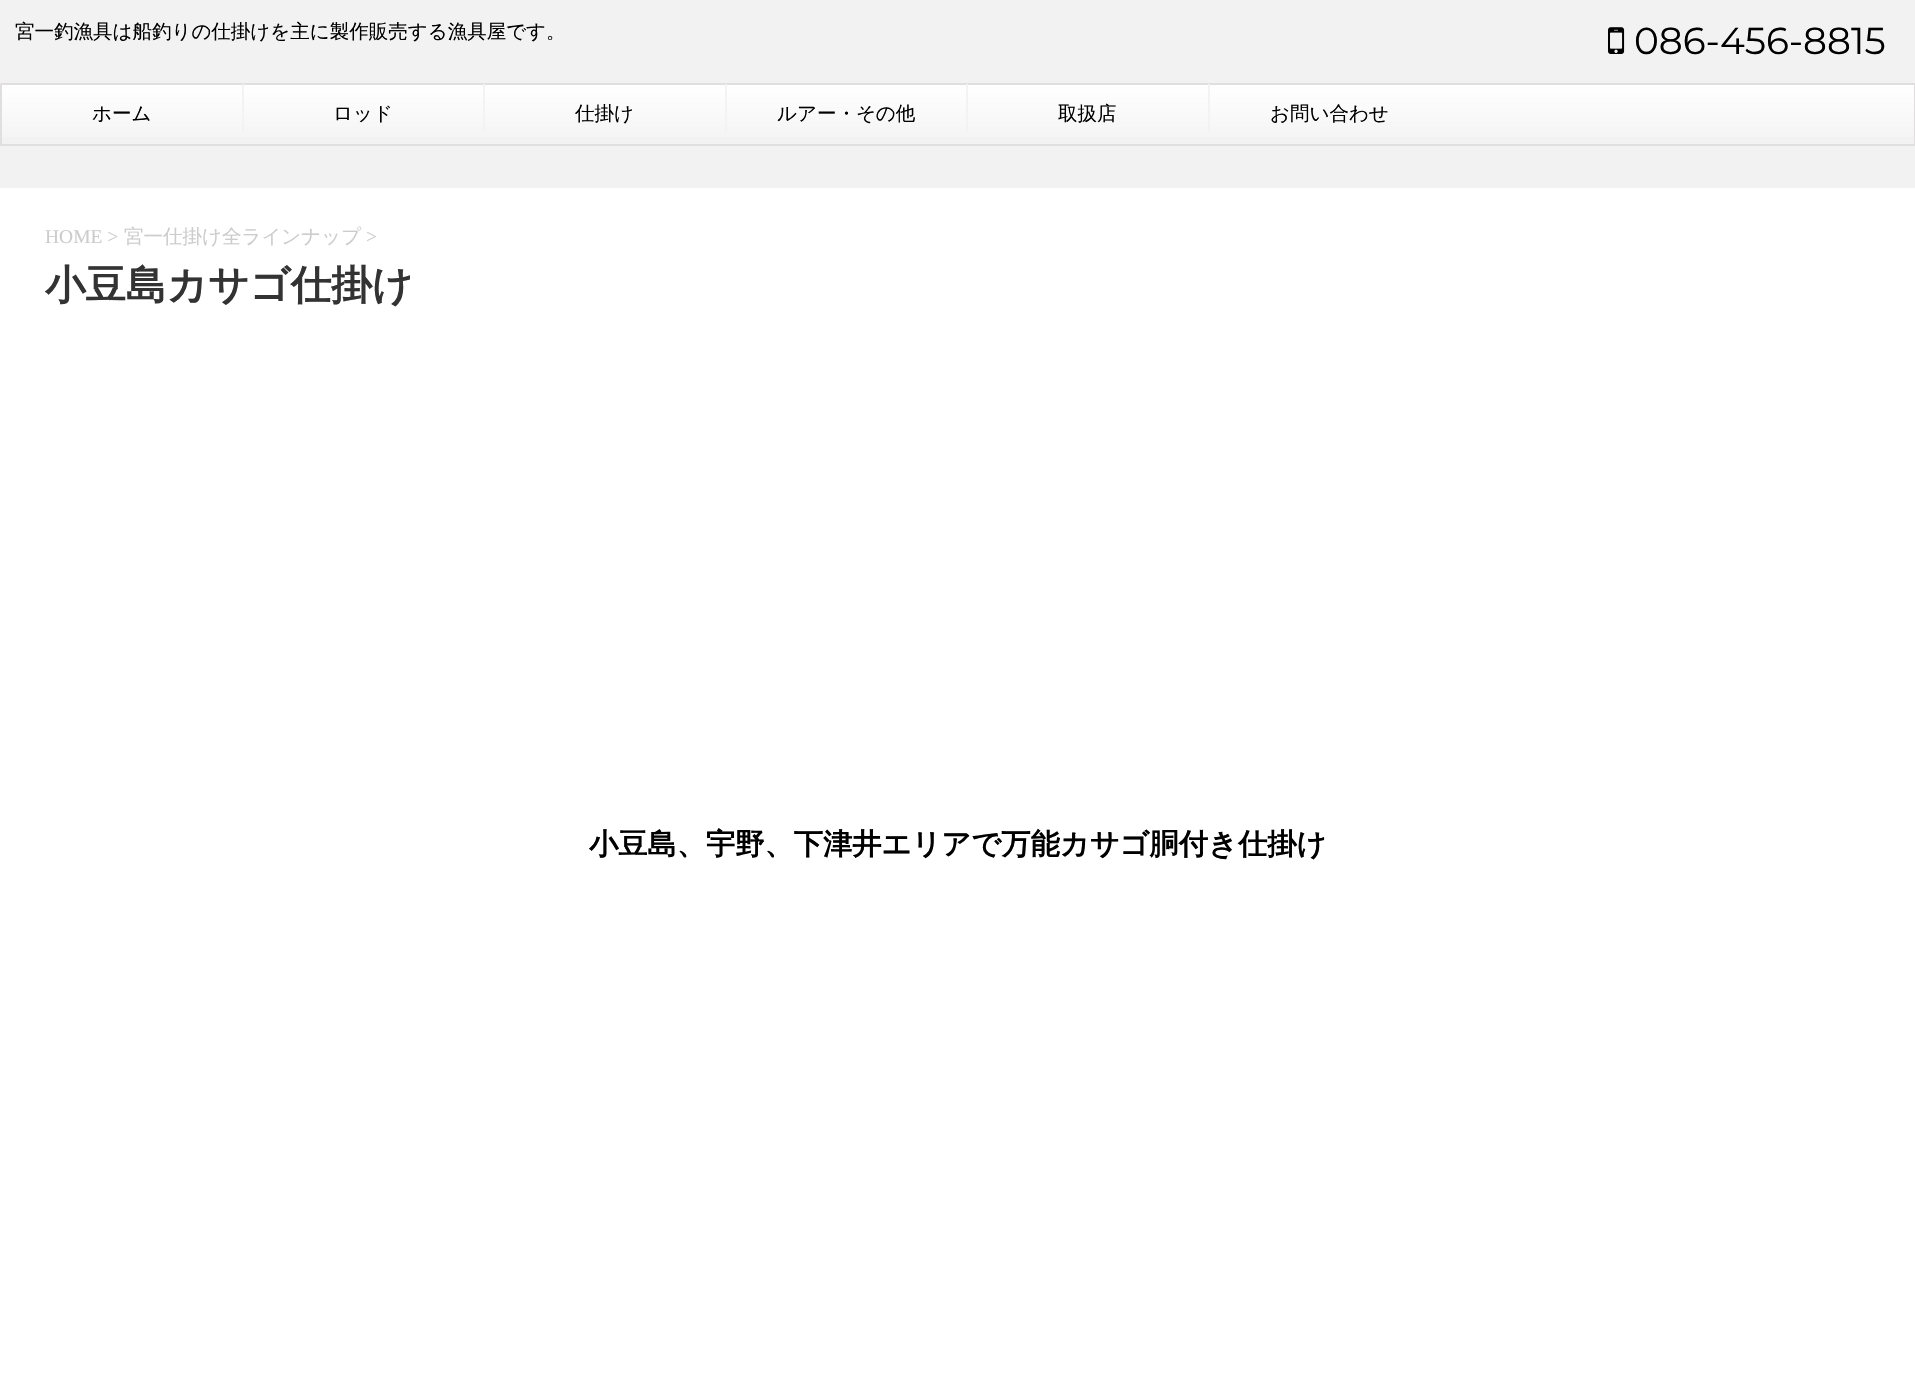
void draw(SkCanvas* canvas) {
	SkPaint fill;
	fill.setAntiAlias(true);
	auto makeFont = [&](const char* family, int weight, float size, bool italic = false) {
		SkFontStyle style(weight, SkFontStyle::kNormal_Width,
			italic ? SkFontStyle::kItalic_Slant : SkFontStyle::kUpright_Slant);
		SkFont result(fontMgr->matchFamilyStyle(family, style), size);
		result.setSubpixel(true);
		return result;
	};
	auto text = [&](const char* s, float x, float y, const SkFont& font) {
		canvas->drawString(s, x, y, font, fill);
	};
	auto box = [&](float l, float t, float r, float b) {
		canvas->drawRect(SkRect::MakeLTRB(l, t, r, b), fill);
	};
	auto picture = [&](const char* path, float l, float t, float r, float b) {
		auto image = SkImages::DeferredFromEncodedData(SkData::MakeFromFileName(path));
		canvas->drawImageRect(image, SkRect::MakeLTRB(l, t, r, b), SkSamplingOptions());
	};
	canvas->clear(0xFFF2F2F2);
	picture("image0.png", 1608, 27, 1625, 54);
	{
		const SkColor colors[] = {0xFFFFFFFF, 0xFFF3F3F3};
		const float stops[] = {0, 1};
		const SkPoint ends[] = {{958, 84}, {958, 144}};
		fill.setShader(SkGradientShader::MakeLinear(ends, colors, stops, 2, SkTileMode::kClamp));
		fill.setAlpha(255);
	}
	box(0, 84, 1914, 137);
	fill.setStyle(SkPaint::kStroke_Style);
	fill.setStrokeWidth(2);
	fill.setShader(nullptr);
	fill.setColor(0xFFE0DEDE);
	canvas->drawRoundRect(SkRect::MakeLTRB(1, 84, 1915, 145), 0.5f, 0.5f, fill);
	fill.setStyle(SkPaint::kFill_Style);
	fill.setColor(0xFFF3F3F3);
	box(242, 84, 244, 132);
	box(483, 84, 485, 132);
	box(725, 84, 727, 132);
	box(966, 84, 968, 132);
	box(1208, 84, 1210, 132);
	fill.setColor(0xFFFFFFFF);
	box(0, 188, 1915, 1397);
	auto font1 = makeFont("WenQuanYi Zen Hei", 500, 19.5f);
	fill.setColor(0xFF000000);
	text("宮一釣漁具は船釣りの仕掛けを主に製作販売する漁具屋です。", 15, 38, font1);
	auto font2 = makeFont("Montserrat", 100, 37.5f);
	text("086-456-8815", 1634, 54, font2);
	text("ホーム", 92, 120, font1);
	text("ロッド", 333, 120, font1);
	text("仕掛け", 575, 120, font1);
	text("ルアー・その他", 777, 120, font1);
	text("取扱店", 1058, 120, font1);
	text("お問い合わせ", 1270, 120, font1);
	auto font3 = makeFont("Liberation Serif", 400, 19.5f);
	fill.setColor(0xFFCCCCCC);
	text("HOME >", 45, 243, font3);
	text("宮一仕掛け全ラインナップ", 124, 243, font1);
	text(">", 366, 243, font3);
	auto font4 = makeFont("WenQuanYi Zen Hei", 700, 40.5f);
	fill.setColor(0xFF333333);
	text("小豆島カサゴ仕掛け", 45, 299, font4);
	auto font5 = makeFont("WenQuanYi Zen Hei", 700, 29.25f);
	fill.setColor(0xFF000000);
	text("小豆島、宇野、下津井エリアで万能カサゴ胴付き仕掛け", 589, 854, font5);
}
